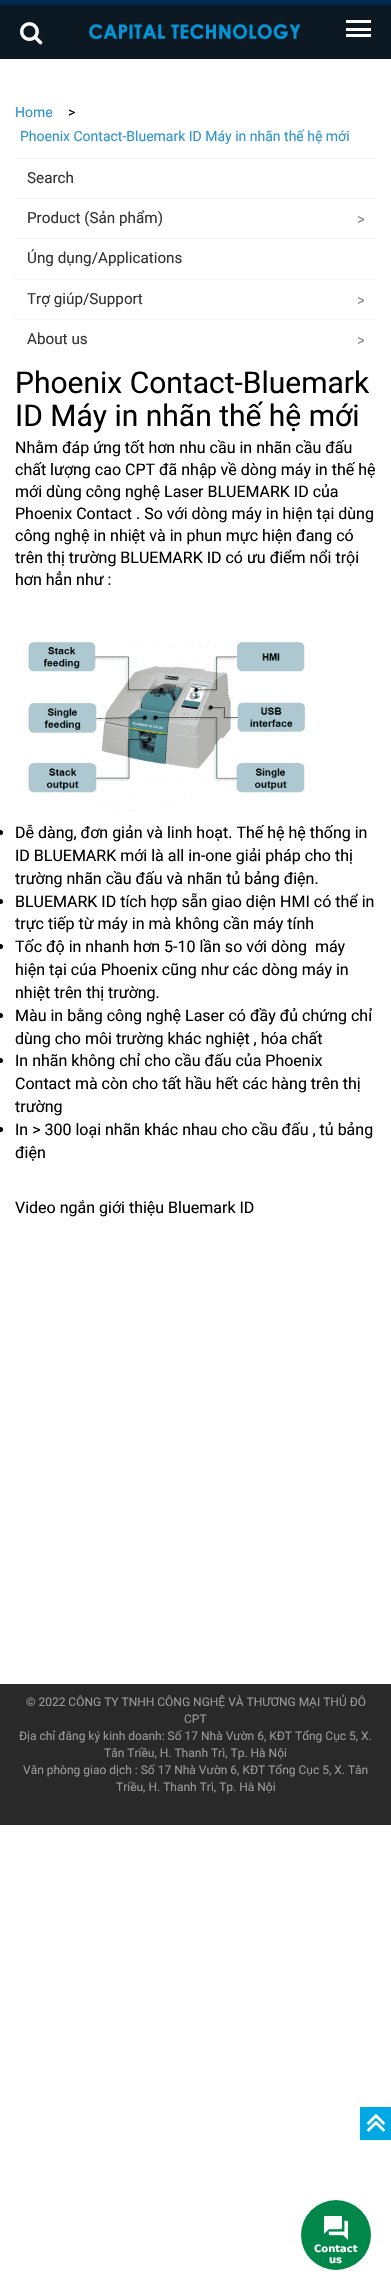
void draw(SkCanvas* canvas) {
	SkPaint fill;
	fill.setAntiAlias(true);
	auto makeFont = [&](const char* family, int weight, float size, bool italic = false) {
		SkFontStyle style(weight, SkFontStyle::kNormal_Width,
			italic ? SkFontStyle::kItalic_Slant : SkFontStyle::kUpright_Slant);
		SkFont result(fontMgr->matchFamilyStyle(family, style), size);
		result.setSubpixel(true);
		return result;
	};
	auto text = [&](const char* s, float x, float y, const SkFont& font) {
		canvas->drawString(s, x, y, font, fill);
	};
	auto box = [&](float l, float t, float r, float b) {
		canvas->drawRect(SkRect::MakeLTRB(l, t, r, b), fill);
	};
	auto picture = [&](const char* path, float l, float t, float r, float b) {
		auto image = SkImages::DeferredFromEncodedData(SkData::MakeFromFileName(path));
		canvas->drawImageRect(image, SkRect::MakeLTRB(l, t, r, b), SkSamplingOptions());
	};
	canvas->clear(0xFFFFFFFF);
	fill.setColor(0xFF0C1923);
	box(0, 5, 391, 59);
	fill.setColor(0xFF002A54);
	box(0, 0, 391, 5);
	picture("image0.png", 20, 22, 43, 45);
	picture("image1.png", 89, 24, 300, 39);
	fill.setColor(0xFFFFFFFF);
	box(346, 20, 371, 23);
	box(346, 28, 371, 31);
	box(346, 34, 371, 37);
	fill.setColor(0xFFF3F3F3);
	box(15, 158, 376, 159);
	box(15, 198, 376, 199);
	picture("image2.png", 358, 216, 364, 223);
	box(15, 238, 376, 239);
	box(15, 279, 376, 280);
	picture("image2.png", 358, 297, 364, 304);
	box(15, 319, 376, 320);
	picture("image2.png", 358, 337, 364, 344);
	picture("image3.png", 28, 642, 305, 811);
	fill.setColor(0xFF000000);
	canvas->drawCircle(0.5f, 832.5f, 2.5f, fill);
	canvas->drawCircle(0.5f, 901.5f, 2.5f, fill);
	canvas->drawCircle(0.5f, 946.5f, 2.5f, fill);
	canvas->drawCircle(0.5f, 1015.5f, 2.5f, fill);
	canvas->drawCircle(0.5f, 1060.5f, 2.5f, fill);
	canvas->drawCircle(0.5f, 1129.5f, 2.5f, fill);
	fill.setColor(0xFF292929);
	box(0, 1684, 391, 1825);
	fill.setColor(0xFF008749);
	canvas->drawCircle(336, 2235, 35, fill);
	picture("image4.png", 324, 2216, 348, 2240);
	picture("image5.png", 360, 2107, 391, 2140);
	auto font1 = makeFont("Roboto", 400, 14);
	fill.setColor(0xFF2F94CE);
	text("Home", 15, 117, font1);
	fill.setColor(0xFF000000);
	text(">", 68, 117, font1);
	fill.setColor(0xFF2F94CE);
	text("Phoenix Contact-Bluemark ID Máy in nhãn thế hệ mới", 20, 141, font1);
	auto font2 = makeFont("Roboto", 400, 15.25f);
	fill.setColor(0xFF333333);
	text("Search", 27, 183, font2);
	text("Product (Sản phẩm)", 27, 223, font2);
	text("Úng dụng/Applications", 27, 263, font2);
	text("Trợ giúp/Support", 27, 304, font2);
	text("About us", 27, 344, font2);
	auto font3 = makeFont("Roboto", 400, 30);
	fill.setColor(0xFF000000);
	text("Phoenix Contact-Bluemark", 15, 393, font3);
	text("ID Máy in nhãn thế hệ mới", 15, 426, font3);
	auto font4 = makeFont("Roboto", 400, 16);
	text("Nhằm đáp ứng tốt hơn nhu cầu in nhãn cầu đấu", 15, 453, font4);
	text("chất lượng cao CPT đã nhập về dòng máy in thế hệ", 15, 475, font4);
	text("mới dùng công nghệ Laser BLUEMARK ID của", 15, 497, font4);
	text("Phoenix Contact . So với dòng máy in hiện tại dùng", 15, 519, font4);
	text("công nghệ in nhiệt và in phun mực hiện đang có", 15, 541, font4);
	text("trên thị trường BLUEMARK ID có ưu điểm nổi trội", 15, 563, font4);
	text("hơn hẳn như :", 15, 585, font4);
	text("Dễ dàng, đơn giản và linh hoạt. Thế hệ hệ thống in", 15, 838, font4);
	text("ID BLUEMARK mới là all in-one giải pháp cho thị", 15, 861, font4);
	text("trường nhãn cầu đấu và nhãn tủ bảng điện.", 15, 884, font4);
	text("BLUEMARK ID tích hợp sẵn giao diện HMI có thể in", 15, 907, font4);
	text("trực tiếp từ máy in mà không cần máy tính", 15, 929, font4);
	text("Tốc độ in nhanh hơn 5-10 lần so với dòng  máy", 15, 952, font4);
	text("hiện tại cúa Phoenix cũng như các dòng máy in", 15, 975, font4);
	text("nhiệt trên thị trường.", 15, 998, font4);
	text("Màu in bằng công nghệ Laser có đầy đủ chứng chỉ", 15, 1021, font4);
	text("dùng cho môi trường khác nghiệt , hóa chất", 15, 1044, font4);
	text("In nhãn không chỉ cho cầu đấu của Phoenix", 15, 1066, font4);
	text("Contact mà còn cho tất hầu hết các hàng trên thị", 15, 1089, font4);
	text("trường", 15, 1112, font4);
	text("In > 300 loại nhãn khác nhau cho cầu đấu , tủ bảng", 15, 1135, font4);
	text("điện", 15, 1158, font4);
	text("Video ngắn giới thiệu Bluemark ID", 15, 1213, font4);
	auto font5 = makeFont("Roboto", 400, 12);
	fill.setColor(0xFF999999);
	text("© 2022 CÔNG TY TNHH CÔNG NGHỆ VÀ THƯƠNG MẠI THỦ ĐÔ", 26, 1706, font5);
	text("CPT", 184, 1723, font5);
	text("Địa chỉ đăng ký kinh doanh: Số 17 Nhà Vườn 6, KĐT Tổng Cục 5, X.", 19, 1740, font5);
	text("Tân Triều, H. Thanh Trì, Tp. Hà Nội", 104, 1757, font5);
	text("Văn phòng giao dịch : Số 17 Nhà Vườn 6, KĐT Tổng Cục 5, X. Tân", 23, 1774, font5);
	text("Triều, H. Thanh Trì, Tp. Hà Nội", 116, 1791, font5);
	auto font6 = makeFont("DejaVu Sans", 700, 10);
	fill.setColor(0xFFFFFFFF);
	text("Contact", 314, 2252, font6);
	text("us", 329, 2263, font6);
}
